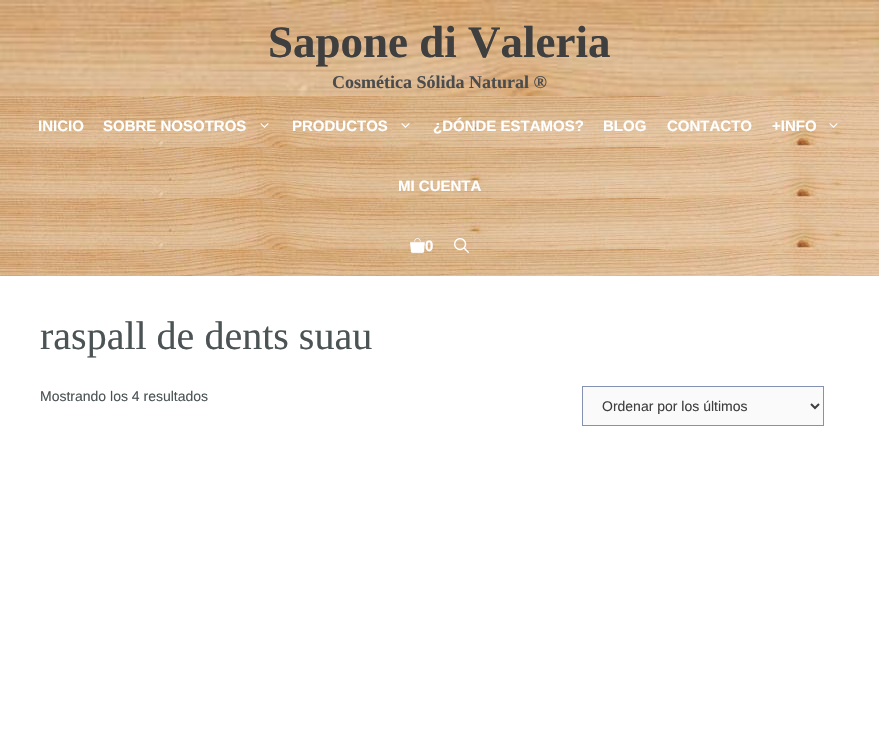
void draw(SkCanvas* canvas) {
	SkPaint fill;
	fill.setAntiAlias(true);
	auto makeFont = [&](const char* family, int weight, float size, bool italic = false) {
		SkFontStyle style(weight, SkFontStyle::kNormal_Width,
			italic ? SkFontStyle::kItalic_Slant : SkFontStyle::kUpright_Slant);
		SkFont result(fontMgr->matchFamilyStyle(family, style), size);
		result.setSubpixel(true);
		return result;
	};
	auto text = [&](const char* s, float x, float y, const SkFont& font) {
		canvas->drawString(s, x, y, font, fill);
	};
	auto picture = [&](const char* path, float l, float t, float r, float b) {
		auto image = SkImages::DeferredFromEncodedData(SkData::MakeFromFileName(path));
		canvas->drawImageRect(image, SkRect::MakeLTRB(l, t, r, b), SkSamplingOptions());
	};
	canvas->clear(0xFFFFFFFF);
	picture("image0.png", 0, 0, 879, 96);
	picture("image1.png", 0, 96, 879, 276);
	picture("image2.png", 260, 123, 269, 128);
	picture("image3.png", 401, 123, 410, 128);
	picture("image4.png", 829, 123, 838, 128);
	picture("image5.png", 410, 238, 425, 253);
	picture("image6.png", 454, 238, 469, 253);
	fill.setColor(0xFFFAFAFA);
	canvas->drawRect(SkRect::MakeLTRB(582.5f, 386.5f, 823.5f, 425.5f), fill);
	fill.setStyle(SkPaint::kStroke_Style);
	fill.setStrokeWidth(1);
	fill.setColor(0xFF8591B2);
	canvas->drawRect(SkRect::MakeLTRB(582.5f, 386.5f, 823.5f, 425.5f), fill);
	fill.setStrokeWidth(2);
	fill.setColor(0xFF3F3F3F);
	canvas->drawPath(SkPathBuilder().moveTo(811, 404).lineTo(815, 408).lineTo(819, 404).detach(), fill);
	auto font1 = makeFont("Liberation Serif", 700, 45);
	fill.setStyle(SkPaint::kFill_Style);
	text("Sapone di Valeria", 268, 57, font1);
	auto font2 = makeFont("Liberation Serif", 700, 18);
	fill.setColor(0xFF4C4C4C);
	text("Cosmética Sólida Natural ®", 332, 88, font2);
	auto font3 = makeFont("Liberation Sans", 700, 15);
	fill.setColor(0xFFFFFFFF);
	text("INICIO", 38, 131, font3);
	text("SOBRE NOSOTROS", 103, 131, font3);
	text("PRODUCTOS", 292, 131, font3);
	text("¿DÓNDE ESTAMOS?", 433, 131, font3);
	text("BLOG", 603, 131, font3);
	text("CONTACTO", 667, 131, font3);
	text("+INFO", 772, 131, font3);
	text("MI CUENTA", 398, 191, font3);
	text("0", 425, 251, font3);
	auto font4 = makeFont("Liberation Serif", 400, 40);
	fill.setColor(0xFF4B5354);
	text("raspall de dents suau", 40, 349, font4);
	auto font5 = makeFont("Liberation Sans", 400, 14);
	text("Mostrando los 4 resultados", 40, 401, font5);
	fill.setColor(0xFF3F3F3F);
	text("Ordenar por los últimos", 602, 411, font5);
}
